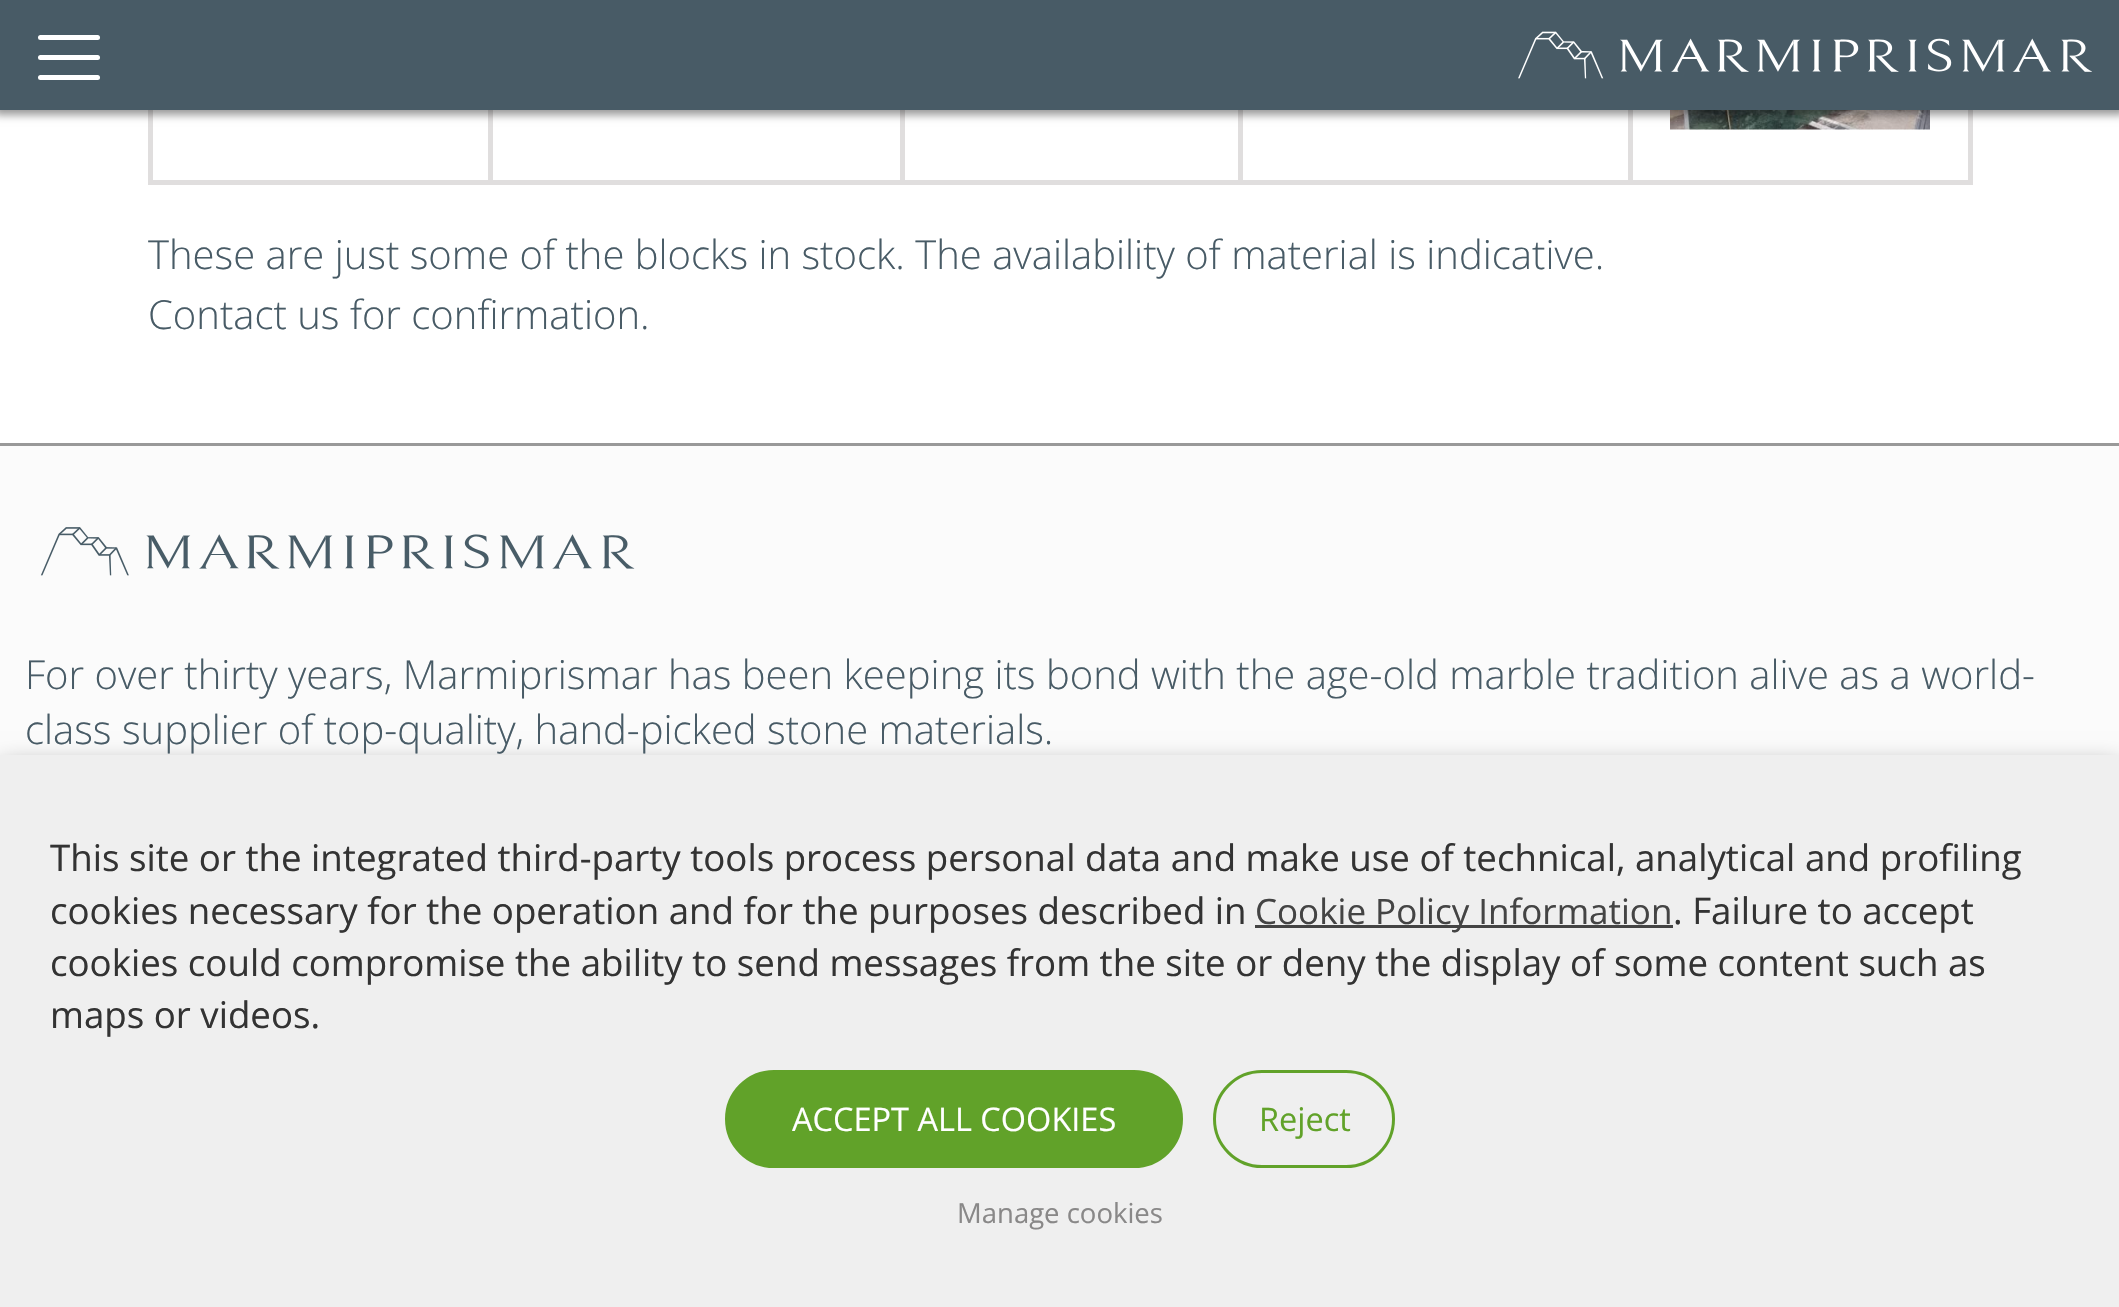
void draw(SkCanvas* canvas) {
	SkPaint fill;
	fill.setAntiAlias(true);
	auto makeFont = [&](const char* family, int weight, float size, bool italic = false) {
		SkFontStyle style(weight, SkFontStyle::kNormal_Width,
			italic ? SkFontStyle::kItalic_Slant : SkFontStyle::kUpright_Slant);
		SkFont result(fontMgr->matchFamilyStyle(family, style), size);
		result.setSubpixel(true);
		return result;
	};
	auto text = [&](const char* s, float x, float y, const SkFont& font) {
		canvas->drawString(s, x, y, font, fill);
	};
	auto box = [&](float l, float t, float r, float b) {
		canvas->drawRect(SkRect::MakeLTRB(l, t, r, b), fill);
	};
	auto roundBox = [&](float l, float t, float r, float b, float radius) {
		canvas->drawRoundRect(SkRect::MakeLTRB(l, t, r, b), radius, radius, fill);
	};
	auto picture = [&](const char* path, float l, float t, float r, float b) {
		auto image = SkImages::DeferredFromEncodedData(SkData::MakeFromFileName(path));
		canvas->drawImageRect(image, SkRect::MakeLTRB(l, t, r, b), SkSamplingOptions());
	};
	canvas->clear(0xFFFFFFFF);
	fill.setColor(0xFFE0DEDE);
	box(1968, 110, 1973, 185);
	box(1628, 180, 1973, 185);
	box(1628, 110, 1633, 185);
	box(1238, 180, 1633, 185);
	box(1238, 110, 1243, 185);
	box(900, 180, 1243, 185);
	box(900, 110, 905, 185);
	box(488, 180, 905, 185);
	box(488, 110, 493, 185);
	box(148, 180, 493, 185);
	box(148, 110, 153, 185);
	picture("image1.png", 1670, 110, 1930, 130);
	fill.setColor(0x66000000);
	fill.setMaskFilter(SkMaskFilter::MakeBlur(kNormal_SkBlurStyle, 4));
	canvas->drawRect(SkRect::MakeLTRB(-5, -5, 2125, 115), fill);
	fill.setMaskFilter(nullptr);
	fill.setColor(0xFF485B66);
	box(0, 0, 2119, 110);
	picture("image0.png", 1518, 31, 2092, 79);
	fill.setColor(0xFFFFFFFF);
	roundBox(38, 55, 100, 60, 2.5f);
	roundBox(38, 35, 100, 40, 2.5f);
	roundBox(38, 75, 100, 80, 2.5f);
	fill.setColor(0xFFFBFBFB);
	box(0, 446, 2119, 755);
	fill.setColor(0xFF999999);
	box(0, 443, 2119, 446);
	picture("image2.png", 40, 527, 635, 576);
	fill.setColor(0x80000000);
	fill.setMaskFilter(SkMaskFilter::MakeBlur(kNormal_SkBlurStyle, 12.5f));
	canvas->drawRect(SkRect::MakeLTRB(0, 768, 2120, 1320), fill);
	fill.setMaskFilter(nullptr);
	fill.setColor(0xFFEFEFEF);
	box(0, 755, 2119, 1307);
	fill.setColor(0xFF444444);
	box(1255, 925, 1673, 928);
	fill.setColor(0xFF61A229);
	canvas->drawRoundRect(SkRect::MakeLTRB(726.5f, 1071.5f, 1181.5f, 1166.5f), 47.5f, 47.5f, fill);
	fill.setStyle(SkPaint::kStroke_Style);
	fill.setStrokeWidth(3);
	canvas->drawRoundRect(SkRect::MakeLTRB(726.5f, 1071.5f, 1181.5f, 1166.5f), 47.5f, 47.5f, fill);
	canvas->drawRoundRect(SkRect::MakeLTRB(1214.5f, 1071.5f, 1393.5f, 1166.5f), 47.5f, 47.5f, fill);
	auto font1 = makeFont("Open Sans", 300, 40);
	fill.setStyle(SkPaint::kFill_Style);
	fill.setColor(0xFF485B66);
	text("These are just some of the blocks in stock. The availability of material is indicative.", 148, 269, font1);
	text("Contact us for confirmation.", 148, 329, font1);
	text("For over thirty years, Marmiprismar has been keeping its bond with the age-old marble tradition alive as a world-", 25, 689, font1);
	text("class supplier of top-quality, hand-picked stone materials.", 25, 744, font1);
	auto font2 = makeFont("Open Sans", 400, 36.67f);
	fill.setColor(0xFF333333);
	text("This site or the integrated third-party tools process personal data and make use of technical, analytical and profiling", 50, 871, font2);
	text("cookies necessary for the operation and for the purposes described in", 50, 924, font2);
	auto font3 = makeFont("Open Sans", 400, 35);
	fill.setColor(0xFF444444);
	text("Cookie Policy Information", 1255, 924, font3);
	fill.setColor(0xFF333333);
	text(". Failure to accept", 1673, 924, font2);
	text("cookies could compromise the ability to send messages from the site or deny the display of some content such as", 50, 976, font2);
	text("maps or videos.", 50, 1028, font2);
	auto font4 = makeFont("Open Sans", 400, 32.5f);
	fill.setColor(0xFFFFFFFF);
	text("ACCEPT ALL COOKIES", 792, 1131, font4);
	fill.setColor(0xFF61A229);
	text("Reject", 1259, 1131, font4);
	auto font5 = makeFont("Open Sans", 400, 27.5f);
	fill.setColor(0xFF898888);
	text("Manage cookies", 957, 1223, font5);
}
